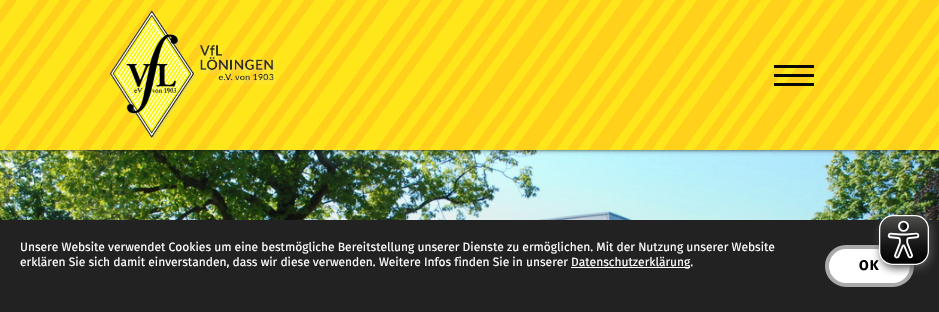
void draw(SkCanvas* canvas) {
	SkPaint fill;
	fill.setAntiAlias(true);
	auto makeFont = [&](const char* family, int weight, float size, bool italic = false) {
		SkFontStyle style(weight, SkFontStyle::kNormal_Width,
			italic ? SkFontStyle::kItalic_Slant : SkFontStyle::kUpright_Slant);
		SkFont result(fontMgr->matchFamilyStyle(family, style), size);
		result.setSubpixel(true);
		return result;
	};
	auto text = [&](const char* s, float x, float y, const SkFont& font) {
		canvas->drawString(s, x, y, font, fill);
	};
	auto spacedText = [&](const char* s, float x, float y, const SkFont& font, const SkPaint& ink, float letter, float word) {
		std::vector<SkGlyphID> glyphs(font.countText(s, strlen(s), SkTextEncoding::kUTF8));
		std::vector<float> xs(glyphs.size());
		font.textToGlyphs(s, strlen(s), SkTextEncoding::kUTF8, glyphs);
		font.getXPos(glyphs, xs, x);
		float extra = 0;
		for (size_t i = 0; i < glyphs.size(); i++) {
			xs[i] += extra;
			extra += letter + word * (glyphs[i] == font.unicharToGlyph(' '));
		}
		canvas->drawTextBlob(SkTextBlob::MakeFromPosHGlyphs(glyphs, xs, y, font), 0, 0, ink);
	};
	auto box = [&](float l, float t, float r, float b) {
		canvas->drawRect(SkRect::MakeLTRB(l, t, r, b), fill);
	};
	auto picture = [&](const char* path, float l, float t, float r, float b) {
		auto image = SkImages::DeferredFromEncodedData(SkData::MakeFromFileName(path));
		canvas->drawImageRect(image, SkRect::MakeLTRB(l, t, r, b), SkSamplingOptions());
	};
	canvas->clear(0xFFFFFFFF);
	picture("image1.png", 0, 150, 939, 220);
	fill.setColor(0x33000000);
	fill.setMaskFilter(SkMaskFilter::MakeBlur(kNormal_SkBlurStyle, 2.5f));
	canvas->drawRect(SkRect::MakeLTRB(0, 1, 939, 151), fill);
	fill.setMaskFilter(nullptr);
	fill.setColor(0x1F000000);
	fill.setMaskFilter(SkMaskFilter::MakeBlur(kNormal_SkBlurStyle, 0.5f));
	canvas->drawRect(SkRect::MakeLTRB(2, 5, 937, 151), fill);
	fill.setMaskFilter(nullptr);
	fill.setColor(0x24000000);
	fill.setMaskFilter(SkMaskFilter::MakeBlur(kNormal_SkBlurStyle, 1));
	canvas->drawRect(SkRect::MakeLTRB(0, 2, 939, 152), fill);
	fill.setMaskFilter(nullptr);
	{
		const SkColor colors[] = {0xFFFFE61A, 0xFFFFE61A, 0xFFFFD11B, 0xFFFFD11B, 0xFFFFE61A, 0xFFFFE61A, 0xFFFFD11B, 0xFFFFD11B, 0xFFFFE61A, 0xFFFFE61A, 0xFFFFD11B, 0xFFFFD11B, 0xFFFFE61A, 0xFFFFE61A, 0xFFFFD11B, 0xFFFFD11B, 0xFFFFE61A, 0xFFFFE61A, 0xFFFFD11B, 0xFFFFD11B, 0xFFFFE61A, 0xFFFFE61A, 0xFFFFD11B, 0xFFFFD11B, 0xFFFFE61A, 0xFFFFE61A, 0xFFFFD11B, 0xFFFFD11B, 0xFFFFE61A, 0xFFFFE61A, 0xFFFFD11B, 0xFFFFD11B, 0xFFFFE61A, 0xFFFFE61A, 0xFFFFD11B, 0xFFFFD11B, 0xFFFFE61A, 0xFFFFE61A, 0xFFFFD11B, 0xFFFFD11B, 0xFFFFE61A, 0xFFFFE61A, 0xFFFFD11B, 0xFFFFD11B, 0xFFFFE61A, 0xFFFFE61A, 0xFFFFD11B, 0xFFFFD11B, 0xFFFFE61A, 0xFFFFE61A, 0xFFFFD11B, 0xFFFFD11B, 0xFFFFE61A, 0xFFFFE61A, 0xFFFFD11B, 0xFFFFD11B, 0xFFFFE61A, 0xFFFFE61A, 0xFFFFD11B, 0xFFFFD11B, 0xFFFFE61A, 0xFFFFE61A, 0xFFFFD11B, 0xFFFFD11B, 0xFFFFE61A, 0xFFFFE61A, 0xFFFFD11B, 0xFFFFD11B, 0xFFFFE61A, 0xFFFFE61A, 0xFFFFD11B, 0xFFFFD11B, 0xFFFFE61A, 0xFFFFE61A, 0xFFFFD11B, 0xFFFFD11B, 0xFFFFE61A, 0xFFFFE61A, 0xFFFFD11B, 0xFFFFD11B, 0xFFFFE61A, 0xFFFFE61A, 0xFFFFD11B, 0xFFFFD11B, 0xFFFFE61A, 0xFFFFE61A, 0xFFFFD11B, 0xFFFFD11B, 0xFFFFE61A, 0xFFFFE61A, 0xFFFFD11B, 0xFFFFD11B, 0xFFFFE61A, 0xFFFFE61A, 0xFFFFD11B, 0xFFFFD11B, 0xFFFFE61A, 0xFFFFE61A, 0xFFFFD11B, 0xFFFFD11B, 0xFFFFE61A, 0xFFFFE61A, 0xFFFFD11B, 0xFFFFD11B, 0xFFFFE61A, 0xFFFFE61A, 0xFFFFD11B, 0xFFFFD11B, 0xFFFFE61A, 0xFFFFE61A, 0xFFFFD11B, 0xFFFFD11B, 0xFFFFE61A, 0xFFFFE61A, 0xFFFFD11B, 0xFFFFD11B, 0xFFFFE61A, 0xFFFFE61A, 0xFFFFD11B, 0xFFFFD11B, 0xFFFFE61A, 0xFFFFE61A, 0xFFFFD11B, 0xFFFFD11B, 0xFFFFE61A, 0xFFFFE61A, 0xFFFFD11B, 0xFFFFD11B, 0xFFFFE61A, 0xFFFFE61A, 0xFFFFD11B, 0xFFFFD11B, 0xFFFFE61A, 0xFFFFE61A, 0xFFFFD11B, 0xFFFFD11B, 0xFFFFE61A, 0xFFFFE61A, 0xFFFFD11B, 0xFFFFD11B, 0xFFFFE61A, 0xFFFFE61A, 0xFFFFD11B, 0xFFFFD11B, 0xFFFFE61A, 0xFFFFE61A, 0xFFFFD11B, 0xFFFFD11B, 0xFFFFE61A, 0xFFFFE61A, 0xFFFFD11B, 0xFFFFD11B, 0xFFFFE61A, 0xFFFFE61A, 0xFFFFD11B, 0xFFFFD11B, 0xFFFFE61A, 0xFFFFE61A, 0xFFFFD11B, 0xFFFFD11B, 0xFFFFE61A, 0xFFFFE61A, 0xFFFFD11B, 0xFFFFD11B, 0xFFFFE61A, 0xFFFFE61A, 0xFFFFD11B, 0xFFFFD11B, 0xFFFFE61A, 0xFFFFE61A, 0xFFFFD11B, 0xFFFFD11B};
		const float stops[] = {0, 0.01f, 0.01f, 0.02f, 0.02f, 0.03f, 0.03f, 0.05f, 0.05f, 0.06f, 0.06f, 0.07f, 0.07f, 0.08f, 0.08f, 0.09f, 0.09f, 0.1f, 0.1f, 0.12f, 0.12f, 0.13f, 0.13f, 0.14f, 0.14f, 0.15f, 0.15f, 0.16f, 0.16f, 0.17f, 0.17f, 0.19f, 0.19f, 0.2f, 0.2f, 0.21f, 0.21f, 0.22f, 0.22f, 0.23f, 0.23f, 0.24f, 0.24f, 0.26f, 0.26f, 0.27f, 0.27f, 0.28f, 0.28f, 0.29f, 0.29f, 0.3f, 0.3f, 0.31f, 0.31f, 0.33f, 0.33f, 0.34f, 0.34f, 0.35f, 0.35f, 0.36f, 0.36f, 0.37f, 0.37f, 0.38f, 0.38f, 0.4f, 0.4f, 0.41f, 0.41f, 0.42f, 0.42f, 0.43f, 0.43f, 0.44f, 0.44f, 0.45f, 0.45f, 0.47f, 0.47f, 0.48f, 0.48f, 0.49f, 0.49f, 0.5f, 0.5f, 0.51f, 0.51f, 0.52f, 0.52f, 0.53f, 0.53f, 0.55f, 0.55f, 0.56f, 0.56f, 0.57f, 0.57f, 0.58f, 0.58f, 0.59f, 0.59f, 0.6f, 0.6f, 0.62f, 0.62f, 0.63f, 0.63f, 0.64f, 0.64f, 0.65f, 0.65f, 0.66f, 0.66f, 0.67f, 0.67f, 0.69f, 0.69f, 0.7f, 0.7f, 0.71f, 0.71f, 0.72f, 0.72f, 0.73f, 0.73f, 0.74f, 0.74f, 0.76f, 0.76f, 0.77f, 0.77f, 0.78f, 0.78f, 0.79f, 0.79f, 0.8f, 0.8f, 0.81f, 0.81f, 0.83f, 0.83f, 0.84f, 0.84f, 0.85f, 0.85f, 0.86f, 0.86f, 0.87f, 0.87f, 0.88f, 0.88f, 0.9f, 0.9f, 0.91f, 0.91f, 0.92f, 0.92f, 0.93f, 0.93f, 0.94f, 0.94f, 0.95f, 0.95f, 0.97f, 0.97f, 0.98f, 0.98f, 0.99f, 0.99f, 1};
		const SkPoint ends[] = {{812, 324}, {117, -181}};
		fill.setShader(SkGradientShader::MakeLinear(ends, colors, stops, 172, SkTileMode::kClamp));
		fill.setAlpha(255);
	}
	box(0, 0, 939, 150);
	picture("image0.png", 109, 10, 275, 140);
	fill.setShader(nullptr);
	fill.setColor(0xFF080806);
	box(774, 74, 814, 77);
	box(774, 65, 814, 68);
	box(774, 83, 814, 86);
	fill.setColor(0xFF222222);
	box(0, 220, 939, 312);
	fill.setColor(0xFFFFFFFF);
	box(571, 267, 690, 268);
	canvas->drawRoundRect(SkRect::MakeLTRB(827, 247, 912, 285), 19, 19, fill);
	fill.setStyle(SkPaint::kStroke_Style);
	fill.setStrokeWidth(4);
	fill.setColor(0xFFAAAAAA);
	canvas->drawRoundRect(SkRect::MakeLTRB(827, 247, 912, 285), 19, 19, fill);
	auto font1 = makeFont("Fira Sans", 400, 12);
	fill.setStyle(SkPaint::kFill_Style);
	fill.setColor(0xFFFFFFFF);
	text("Unsere Website verwendet Cookies um eine bestmögliche Bereitstellung unserer Dienste zu ermöglichen. Mit der Nutzung unserer Website", 20, 251, font1);
	text("erklären Sie sich damit einverstanden, dass wir diese verwenden. Weitere Infos finden Sie in unserer", 20, 266, font1);
	text("Datenschutzerklärung.", 571, 266, font1);
	auto font2 = makeFont("Fira Sans", 700, 14);
	fill.setColor(0xFF000000);
	spacedText("OK", 859, 270, font2, fill, 1, 0);
	picture("image2.png", 873, 211, 937, 276);
}
